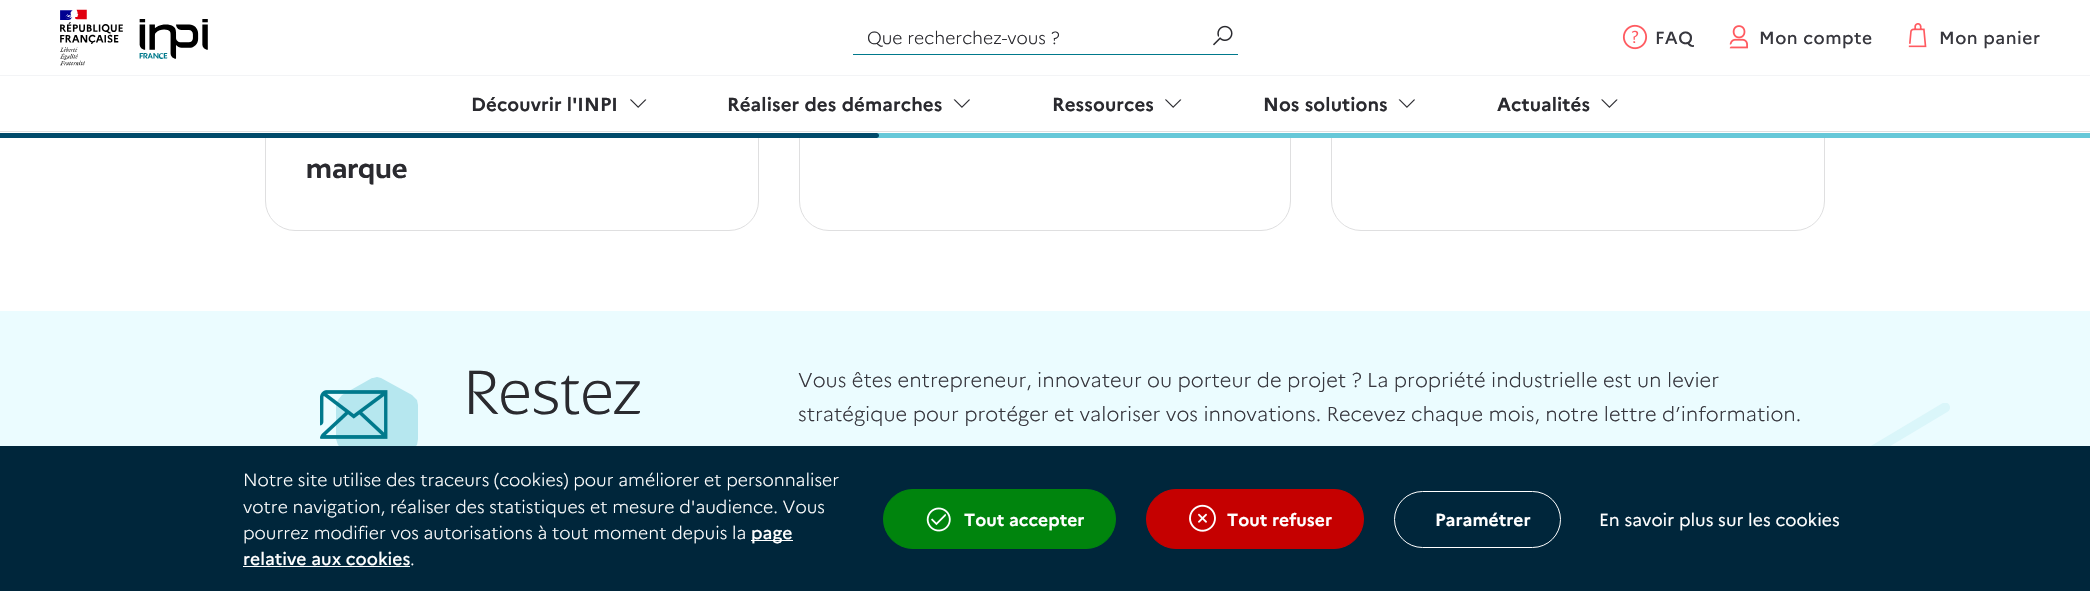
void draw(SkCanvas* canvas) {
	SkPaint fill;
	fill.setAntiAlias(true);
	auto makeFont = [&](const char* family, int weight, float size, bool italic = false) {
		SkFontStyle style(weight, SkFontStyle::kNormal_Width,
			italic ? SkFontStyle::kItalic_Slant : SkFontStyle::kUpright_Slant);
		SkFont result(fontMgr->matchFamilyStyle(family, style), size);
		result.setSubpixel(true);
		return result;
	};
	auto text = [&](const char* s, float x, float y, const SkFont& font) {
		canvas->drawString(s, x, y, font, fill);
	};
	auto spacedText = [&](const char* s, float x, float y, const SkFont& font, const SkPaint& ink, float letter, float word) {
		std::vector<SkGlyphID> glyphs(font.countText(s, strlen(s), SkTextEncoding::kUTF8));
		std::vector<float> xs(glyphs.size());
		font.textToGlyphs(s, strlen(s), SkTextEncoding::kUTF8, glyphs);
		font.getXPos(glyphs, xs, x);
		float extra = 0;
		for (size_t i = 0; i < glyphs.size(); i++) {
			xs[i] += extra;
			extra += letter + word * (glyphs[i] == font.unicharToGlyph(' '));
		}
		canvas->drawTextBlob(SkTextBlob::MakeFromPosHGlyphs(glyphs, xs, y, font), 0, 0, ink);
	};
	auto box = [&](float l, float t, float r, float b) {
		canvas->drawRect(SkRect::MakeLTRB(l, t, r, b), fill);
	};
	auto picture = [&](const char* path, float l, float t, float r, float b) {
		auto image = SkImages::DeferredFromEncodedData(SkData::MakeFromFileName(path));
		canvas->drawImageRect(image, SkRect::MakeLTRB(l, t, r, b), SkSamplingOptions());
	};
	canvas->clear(0xFFFFFFFF);
	fill.setStyle(SkPaint::kStroke_Style);
	fill.setStrokeWidth(1);
	fill.setColor(0xFFDFDFE0);
	canvas->drawRoundRect(SkRect::MakeLTRB(265.5f, 74.5f, 758.5f, 230.5f), 29.5f, 29.5f, fill);
	canvas->drawRoundRect(SkRect::MakeLTRB(799.5f, 74.5f, 1290.5f, 230.5f), 29.5f, 29.5f, fill);
	canvas->drawRoundRect(SkRect::MakeLTRB(1331.5f, 74.5f, 1824.5f, 230.5f), 29.5f, 29.5f, fill);
	fill.setStyle(SkPaint::kFill_Style);
	fill.setColor(0xFFFFFFFF);
	box(265, 74, 1825, 133);
	picture("image0.png", 60, 9, 208, 66);
	fill.setColor(0xFF00798C);
	box(853, 54, 1238, 55);
	picture("image1.png", 1213, 25, 1233, 46);
	picture("image2.png", 1622, 24, 1648, 50);
	picture("image3.png", 1729, 25, 1748, 49);
	picture("image4.png", 1908, 23, 1927, 48);
	fill.setColor(0xFFF3F4F6);
	box(0, 75, 2090, 76);
	fill.setColor(0xFFDFDFE0);
	box(0, 131, 2090, 132);
	picture("image5.png", 630, 99, 647, 108);
	picture("image6.png", 953, 99, 970, 108);
	picture("image5.png", 1165, 99, 1182, 108);
	picture("image6.png", 1398, 99, 1415, 108);
	picture("image7.png", 1601, 99, 1618, 108);
	fill.setColor(0xFF66C8D8);
	box(876, 133, 2090, 138);
	fill.setColor(0xFF004A6A);
	canvas->drawPath(SkPathBuilder().moveTo(0, 133).lineTo(876.5f, 133).cubicTo(878, 133, 879, 134, 879, 135.5f).cubicTo(879, 137, 878, 138, 876.5f, 138).lineTo(0, 138).close().detach(), fill);
	fill.setColor(0xFFEBFCFF);
	box(0, 311, 2090, 446);
	canvas->save();
	canvas->clipRect(SkRect::MakeLTRB(1616, 403, 1950, 580));
	fill.setStyle(SkPaint::kStroke_Style);
	fill.setStrokeWidth(10);
	fill.setStrokeCap(SkPaint::kRound_Cap);
	fill.setColor(0xFFDAF6FA);
	canvas->drawPath(SkPathBuilder().moveTo(1812, 487).lineTo(1945, 407.5f).moveTo(1622.5f, 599.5f).lineTo(1755.5f, 520.5f).detach(), fill);
	canvas->restore();
	fill.setStyle(SkPaint::kFill_Style);
	fill.setColor(0xFFB6E7EF);
	canvas->drawPath(SkPathBuilder().moveTo(372, 378).lineTo(342, 395).lineTo(338, 400).lineTo(336, 405).lineTo(336, 439).lineTo(338, 445).lineTo(342, 449).lineTo(372, 466).lineTo(377, 468).lineTo(383, 466).lineTo(412, 449).lineTo(417, 445).lineTo(418, 439).lineTo(418, 405).lineTo(417, 400).lineTo(412, 395).lineTo(381, 378).lineTo(377, 377).lineTo(373, 378).close().detach(), fill);
	picture("image8.png", 320, 390, 388, 439);
	fill.setColor(0xFF00263B);
	box(0, 446, 2090, 591);
	fill.setColor(0xFFFFFFFF);
	box(751, 540, 793, 541);
	box(243, 566, 410, 567);
	fill.setColor(0xFF00840D);
	canvas->drawRoundRect(SkRect::MakeLTRB(883.5f, 489.5f, 1115.5f, 548.5f), 29.5f, 29.5f, fill);
	fill.setStyle(SkPaint::kStroke_Style);
	fill.setStrokeWidth(1);
	fill.setStrokeCap(SkPaint::kButt_Cap);
	canvas->drawRoundRect(SkRect::MakeLTRB(883.5f, 489.5f, 1115.5f, 548.5f), 29.5f, 29.5f, fill);
	picture("image9.png", 926, 507, 951, 532);
	fill.setStyle(SkPaint::kFill_Style);
	fill.setColor(0xFFC50000);
	canvas->drawRoundRect(SkRect::MakeLTRB(1146.5f, 489.5f, 1363.5f, 548.5f), 29.5f, 29.5f, fill);
	fill.setStyle(SkPaint::kStroke_Style);
	canvas->drawRoundRect(SkRect::MakeLTRB(1146.5f, 489.5f, 1363.5f, 548.5f), 29.5f, 29.5f, fill);
	picture("image10.png", 1189, 504, 1216, 532);
	fill.setColor(0xFFFFFFFF);
	canvas->drawRoundRect(SkRect::MakeLTRB(1394.5f, 491.5f, 1560.5f, 547.5f), 28, 28, fill);
	auto font1 = makeFont("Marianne", 300, 17.5f);
	fill.setStyle(SkPaint::kFill_Style);
	fill.setColor(0xFF2A2A2F);
	text("Que recherchez-vous ?", 867, 44, font1);
	auto font2 = makeFont("Marianne", 500, 17.5f);
	fill.setColor(0xFF37373E);
	spacedText("FAQ", 1655, 44, font2, fill, 0.5f, 0);
	spacedText("Mon compte", 1759, 44, font2, fill, 0.5f, 0);
	spacedText("Mon panier", 1939, 44, font2, fill, 0.5f, 0);
	auto font3 = makeFont("Marianne", 700, 18.75f);
	fill.setColor(0xFF2A2A2F);
	spacedText("Découvrir l'INPI", 471, 111, font3, fill, 0.1f, 0);
	spacedText("Réaliser des démarches", 727, 111, font3, fill, 0.1f, 0);
	spacedText("Ressources", 1052, 111, font3, fill, 0.1f, 0);
	spacedText("Nos solutions", 1263, 111, font3, fill, 0.1f, 0);
	spacedText("Actualités", 1497, 111, font3, fill, 0.1f, 0);
	auto font4 = makeFont("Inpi", 700, 29);
	text("marque", 306, 178, font4);
	auto font5 = makeFont("Inpi", 300, 67.5f);
	text("Restez", 464, 414, font5);
	auto font6 = makeFont("Marianne", 300, 20);
	fill.setColor(0xFF37373E);
	text("Vous êtes entrepreneur, innovateur ou porteur de projet ? La propriété industrielle est un levier", 798, 387, font6);
	text("stratégique pour protéger et valoriser vos innovations. Recevez chaque mois, notre lettre d’information.", 798, 421, font6);
	fill.setColor(0xFFFFFFFF);
	text("Notre site utilise des traceurs (cookies) pour améliorer et personnaliser", 243, 486, font1);
	text("votre navigation, réaliser des statistiques et mesure d'audience. Vous", 243, 513, font1);
	text("pourrez modifier vos autorisations à tout moment depuis la", 243, 539, font1);
	text("page", 751, 539, font2);
	text("relative aux cookies", 243, 565, font2);
	text(".", 410, 565, font1);
	auto font7 = makeFont("Marianne", 700, 17.5f);
	text("Tout accepter", 964, 526, font7);
	text("Tout refuser", 1227, 526, font7);
	text("Paramétrer", 1435, 526, font7);
	auto font8 = makeFont("Marianne", 400, 17.5f);
	text("En savoir plus sur les cookies", 1599, 526, font8);
}
